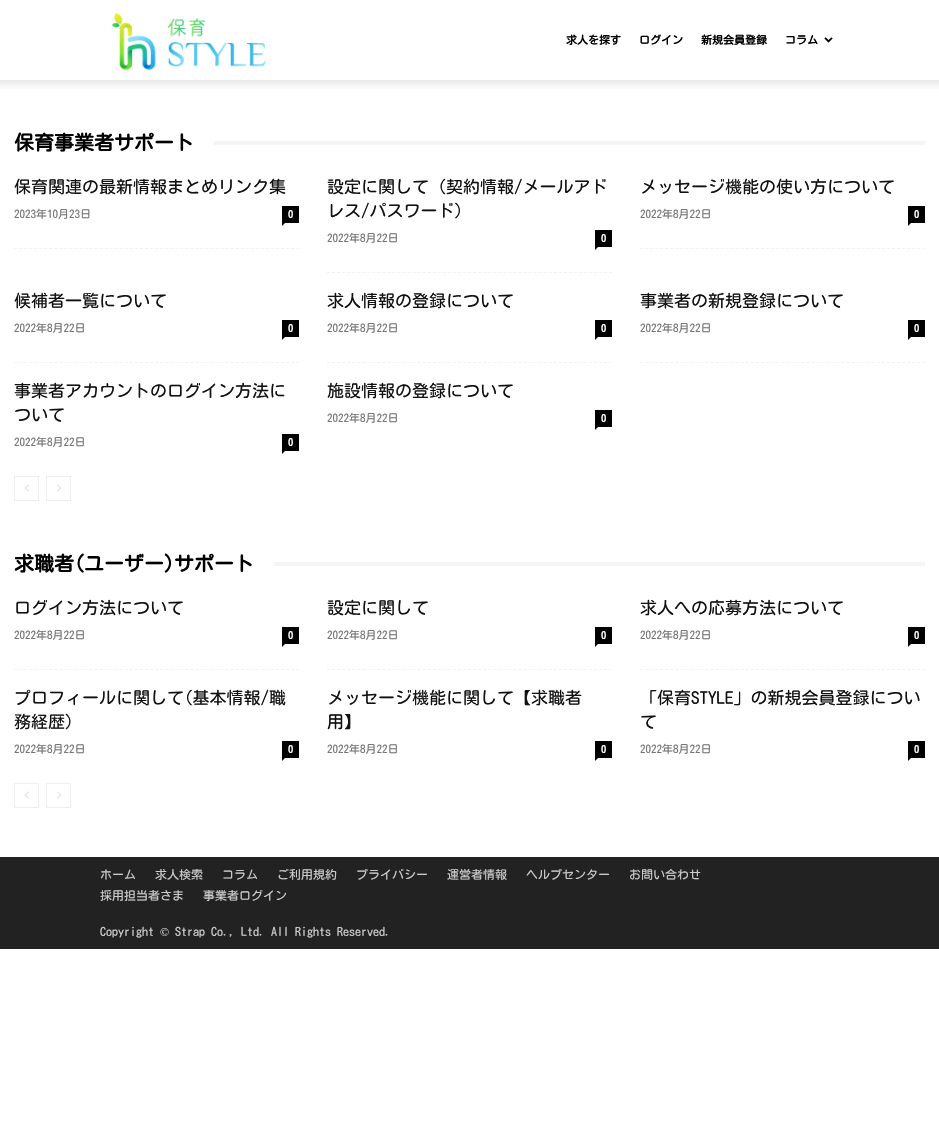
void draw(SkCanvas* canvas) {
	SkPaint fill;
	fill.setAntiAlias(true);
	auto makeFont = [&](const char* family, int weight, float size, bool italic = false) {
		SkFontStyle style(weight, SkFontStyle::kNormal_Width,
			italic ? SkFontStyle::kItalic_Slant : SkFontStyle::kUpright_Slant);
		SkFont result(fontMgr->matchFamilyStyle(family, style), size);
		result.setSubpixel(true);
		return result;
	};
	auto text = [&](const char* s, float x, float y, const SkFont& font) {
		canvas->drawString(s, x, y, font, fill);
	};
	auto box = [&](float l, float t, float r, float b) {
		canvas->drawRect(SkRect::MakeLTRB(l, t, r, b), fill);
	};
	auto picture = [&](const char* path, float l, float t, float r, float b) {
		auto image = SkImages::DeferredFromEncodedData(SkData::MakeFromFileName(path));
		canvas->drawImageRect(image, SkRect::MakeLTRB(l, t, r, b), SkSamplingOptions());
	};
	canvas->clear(0xFFFFFFFF);
	picture("image0.png", 111, 12, 266, 71);
	picture("image1.png", 824, 37, 833, 43);
	picture("image2.png", 0, 80, 939, 89);
	fill.setColor(0xFFF5F5F5);
	box(214, 141, 925, 145);
	fill.setStyle(SkPaint::kStroke_Style);
	fill.setStrokeWidth(1);
	fill.setColor(0xFFF2F2F2);
	fill.setPathEffect(SkDashPathEffect::Make({{3, 2.04f}}, 0));
	canvas->drawPath(SkPathBuilder().moveTo(14, 248.5f).lineTo(299, 248.5f).detach(), fill);
	fill.setPathEffect(nullptr);
	fill.setStyle(SkPaint::kFill_Style);
	fill.setColor(0xFF000000);
	box(282, 206, 299, 223);
	canvas->drawPath(SkPathBuilder().moveTo(282, 223).lineTo(285, 223).lineTo(282, 226).close().detach(), fill);
	fill.setStyle(SkPaint::kStroke_Style);
	fill.setColor(0xFFF2F2F2);
	fill.setPathEffect(SkDashPathEffect::Make({{3, 2.04f}}, 0));
	canvas->drawPath(SkPathBuilder().moveTo(327, 272.5f).lineTo(612, 272.5f).detach(), fill);
	fill.setPathEffect(nullptr);
	fill.setStyle(SkPaint::kFill_Style);
	fill.setColor(0xFF000000);
	box(595, 230, 612, 247);
	canvas->drawPath(SkPathBuilder().moveTo(595, 247).lineTo(598, 247).lineTo(595, 250).close().detach(), fill);
	fill.setStyle(SkPaint::kStroke_Style);
	fill.setColor(0xFFF2F2F2);
	fill.setPathEffect(SkDashPathEffect::Make({{3, 2.04f}}, 0));
	canvas->drawPath(SkPathBuilder().moveTo(640, 248.5f).lineTo(925, 248.5f).detach(), fill);
	fill.setPathEffect(nullptr);
	fill.setStyle(SkPaint::kFill_Style);
	fill.setColor(0xFF000000);
	box(908, 206, 925, 223);
	canvas->drawPath(SkPathBuilder().moveTo(908, 223).lineTo(911, 223).lineTo(908, 226).close().detach(), fill);
	fill.setStyle(SkPaint::kStroke_Style);
	fill.setColor(0xFFF2F2F2);
	fill.setPathEffect(SkDashPathEffect::Make({{3, 2.04f}}, 0));
	canvas->drawPath(SkPathBuilder().moveTo(14, 362.5f).lineTo(299, 362.5f).detach(), fill);
	fill.setPathEffect(nullptr);
	fill.setStyle(SkPaint::kFill_Style);
	fill.setColor(0xFF000000);
	box(282, 320, 299, 337);
	canvas->drawPath(SkPathBuilder().moveTo(282, 337).lineTo(285, 337).lineTo(282, 340).close().detach(), fill);
	fill.setStyle(SkPaint::kStroke_Style);
	fill.setColor(0xFFF2F2F2);
	fill.setPathEffect(SkDashPathEffect::Make({{3, 2.04f}}, 0));
	canvas->drawPath(SkPathBuilder().moveTo(327, 362.5f).lineTo(612, 362.5f).detach(), fill);
	fill.setPathEffect(nullptr);
	fill.setStyle(SkPaint::kFill_Style);
	fill.setColor(0xFF000000);
	box(595, 320, 612, 337);
	canvas->drawPath(SkPathBuilder().moveTo(595, 337).lineTo(598, 337).lineTo(595, 340).close().detach(), fill);
	fill.setStyle(SkPaint::kStroke_Style);
	fill.setColor(0xFFF2F2F2);
	fill.setPathEffect(SkDashPathEffect::Make({{3, 2.04f}}, 0));
	canvas->drawPath(SkPathBuilder().moveTo(640, 362.5f).lineTo(925, 362.5f).detach(), fill);
	fill.setPathEffect(nullptr);
	fill.setStyle(SkPaint::kFill_Style);
	fill.setColor(0xFF000000);
	box(908, 320, 925, 337);
	canvas->drawPath(SkPathBuilder().moveTo(908, 337).lineTo(911, 337).lineTo(908, 340).close().detach(), fill);
	box(282, 434, 299, 451);
	canvas->drawPath(SkPathBuilder().moveTo(282, 451).lineTo(285, 451).lineTo(282, 454).close().detach(), fill);
	box(595, 410, 612, 427);
	canvas->drawPath(SkPathBuilder().moveTo(595, 427).lineTo(598, 427).lineTo(595, 430).close().detach(), fill);
	fill.setStyle(SkPaint::kStroke_Style);
	fill.setColor(0xFFEEEEEE);
	canvas->drawRect(SkRect::MakeLTRB(14.5f, 476.5f, 38.5f, 500.5f), fill);
	picture("image3.png", 24, 484, 29, 492);
	canvas->drawRect(SkRect::MakeLTRB(46.5f, 476.5f, 70.5f, 500.5f), fill);
	picture("image4.png", 57, 484, 61, 492);
	fill.setStyle(SkPaint::kFill_Style);
	fill.setColor(0xFFF5F5F5);
	box(274, 562, 925, 566);
	fill.setStyle(SkPaint::kStroke_Style);
	fill.setColor(0xFFF2F2F2);
	fill.setPathEffect(SkDashPathEffect::Make({{3, 2.04f}}, 0));
	canvas->drawPath(SkPathBuilder().moveTo(14, 669.5f).lineTo(299, 669.5f).detach(), fill);
	fill.setPathEffect(nullptr);
	fill.setStyle(SkPaint::kFill_Style);
	fill.setColor(0xFF000000);
	box(282, 627, 299, 644);
	canvas->drawPath(SkPathBuilder().moveTo(282, 644).lineTo(285, 644).lineTo(282, 647).close().detach(), fill);
	fill.setStyle(SkPaint::kStroke_Style);
	fill.setColor(0xFFF2F2F2);
	fill.setPathEffect(SkDashPathEffect::Make({{3, 2.04f}}, 0));
	canvas->drawPath(SkPathBuilder().moveTo(327, 669.5f).lineTo(612, 669.5f).detach(), fill);
	fill.setPathEffect(nullptr);
	fill.setStyle(SkPaint::kFill_Style);
	fill.setColor(0xFF000000);
	box(595, 627, 612, 644);
	canvas->drawPath(SkPathBuilder().moveTo(595, 644).lineTo(598, 644).lineTo(595, 647).close().detach(), fill);
	fill.setStyle(SkPaint::kStroke_Style);
	fill.setColor(0xFFF2F2F2);
	fill.setPathEffect(SkDashPathEffect::Make({{3, 2.04f}}, 0));
	canvas->drawPath(SkPathBuilder().moveTo(640, 669.5f).lineTo(925, 669.5f).detach(), fill);
	fill.setPathEffect(nullptr);
	fill.setStyle(SkPaint::kFill_Style);
	fill.setColor(0xFF000000);
	box(908, 627, 925, 644);
	canvas->drawPath(SkPathBuilder().moveTo(908, 644).lineTo(911, 644).lineTo(908, 647).close().detach(), fill);
	box(282, 741, 299, 758);
	canvas->drawPath(SkPathBuilder().moveTo(282, 758).lineTo(285, 758).lineTo(282, 761).close().detach(), fill);
	box(595, 741, 612, 758);
	canvas->drawPath(SkPathBuilder().moveTo(595, 758).lineTo(598, 758).lineTo(595, 761).close().detach(), fill);
	box(908, 741, 925, 758);
	canvas->drawPath(SkPathBuilder().moveTo(908, 758).lineTo(911, 758).lineTo(908, 761).close().detach(), fill);
	fill.setStyle(SkPaint::kStroke_Style);
	fill.setColor(0xFFEEEEEE);
	canvas->drawRect(SkRect::MakeLTRB(14.5f, 783.5f, 38.5f, 807.5f), fill);
	picture("image3.png", 24, 791, 29, 799);
	canvas->drawRect(SkRect::MakeLTRB(46.5f, 783.5f, 70.5f, 807.5f), fill);
	picture("image4.png", 57, 791, 61, 799);
	fill.setStyle(SkPaint::kFill_Style);
	fill.setColor(0xFF222222);
	box(0, 857, 939, 949);
	auto font1 = makeFont("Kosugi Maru", 700, 11);
	fill.setColor(0xFF000000);
	text("求人を探す", 566, 44, font1);
	text("ログイン", 639, 44, font1);
	text("新規会員登録", 701, 44, font1);
	text("コラム", 785, 44, font1);
	auto font2 = makeFont("Kosugi Maru", 700, 20);
	text("保育事業者サポート", 14, 150, font2);
	auto font3 = makeFont("Kosugi Maru", 400, 17);
	fill.setColor(0xFF111111);
	text("保育関連の最新情報まとめリンク集", 14, 193, font3);
	auto font4 = makeFont("Kosugi Maru", 400, 11);
	fill.setColor(0xFF767676);
	text("2023年10月23日", 14, 218, font4);
	auto font5 = makeFont("Kosugi Maru", 700, 10);
	fill.setColor(0xFFFFFFFF);
	text("0", 288, 218, font5);
	fill.setColor(0xFF111111);
	text("設定に関して（契約情報/メールアド", 327, 193, font3);
	text("レス/パスワード）", 327, 217, font3);
	fill.setColor(0xFF767676);
	text("2022年8月22日", 327, 242, font4);
	fill.setColor(0xFFFFFFFF);
	text("0", 601, 242, font5);
	fill.setColor(0xFF111111);
	text("メッセージ機能の使い方について", 640, 193, font3);
	fill.setColor(0xFF767676);
	text("2022年8月22日", 640, 218, font4);
	fill.setColor(0xFFFFFFFF);
	text("0", 914, 218, font5);
	fill.setColor(0xFF111111);
	text("候補者一覧について", 14, 307, font3);
	fill.setColor(0xFF767676);
	text("2022年8月22日", 14, 332, font4);
	fill.setColor(0xFFFFFFFF);
	text("0", 288, 332, font5);
	fill.setColor(0xFF111111);
	text("求人情報の登録について", 327, 307, font3);
	fill.setColor(0xFF767676);
	text("2022年8月22日", 327, 332, font4);
	fill.setColor(0xFFFFFFFF);
	text("0", 601, 332, font5);
	fill.setColor(0xFF111111);
	text("事業者の新規登録について", 640, 307, font3);
	fill.setColor(0xFF767676);
	text("2022年8月22日", 640, 332, font4);
	fill.setColor(0xFFFFFFFF);
	text("0", 914, 332, font5);
	fill.setColor(0xFF111111);
	text("事業者アカウントのログイン方法に", 14, 397, font3);
	text("ついて", 14, 421, font3);
	fill.setColor(0xFF767676);
	text("2022年8月22日", 14, 446, font4);
	fill.setColor(0xFFFFFFFF);
	text("0", 288, 446, font5);
	fill.setColor(0xFF111111);
	text("施設情報の登録について", 327, 397, font3);
	fill.setColor(0xFF767676);
	text("2022年8月22日", 327, 422, font4);
	fill.setColor(0xFFFFFFFF);
	text("0", 601, 422, font5);
	fill.setColor(0xFF000000);
	text("求職者(ユーザー)サポート", 14, 571, font2);
	fill.setColor(0xFF111111);
	text("ログイン方法について", 14, 614, font3);
	fill.setColor(0xFF767676);
	text("2022年8月22日", 14, 639, font4);
	fill.setColor(0xFFFFFFFF);
	text("0", 288, 639, font5);
	fill.setColor(0xFF111111);
	text("設定に関して", 327, 614, font3);
	fill.setColor(0xFF767676);
	text("2022年8月22日", 327, 639, font4);
	fill.setColor(0xFFFFFFFF);
	text("0", 601, 639, font5);
	fill.setColor(0xFF111111);
	text("求人への応募方法について", 640, 614, font3);
	fill.setColor(0xFF767676);
	text("2022年8月22日", 640, 639, font4);
	fill.setColor(0xFFFFFFFF);
	text("0", 914, 639, font5);
	fill.setColor(0xFF111111);
	text("プロフィールに関して(基本情報/職", 14, 704, font3);
	text("務経歴)", 14, 728, font3);
	fill.setColor(0xFF767676);
	text("2022年8月22日", 14, 753, font4);
	fill.setColor(0xFFFFFFFF);
	text("0", 288, 753, font5);
	fill.setColor(0xFF111111);
	text("メッセージ機能に関して【求職者", 327, 704, font3);
	text("用】", 327, 728, font3);
	fill.setColor(0xFF767676);
	text("2022年8月22日", 327, 753, font4);
	fill.setColor(0xFFFFFFFF);
	text("0", 601, 753, font5);
	fill.setColor(0xFF111111);
	text("「保育STYLE」の新規会員登録につい", 640, 704, font3);
	text("て", 640, 728, font3);
	fill.setColor(0xFF767676);
	text("2022年8月22日", 640, 753, font4);
	fill.setColor(0xFFFFFFFF);
	text("0", 914, 753, font5);
	auto font6 = makeFont("Kosugi Maru", 400, 12);
	fill.setColor(0xFFCCCCCC);
	text("ホーム", 100, 879, font6);
	text("求人検索", 155, 879, font6);
	text("コラム", 222, 879, font6);
	text("ご利用規約", 277, 879, font6);
	text("プライバシー", 356, 879, font6);
	text("運営者情報", 447, 879, font6);
	text("ヘルプセンター", 526, 879, font6);
	text("お問い合わせ", 629, 879, font6);
	text("採用担当者さま", 100, 900, font6);
	text("事業者ログイン", 203, 900, font6);
	text("Copyright", 100, 936, font6);
	auto font7 = makeFont("Liberation Serif", 400, 12);
	text("©", 160, 936, font7);
	text("Strap Co., Ltd. All Rights Reserved.", 175, 936, font6);
}
